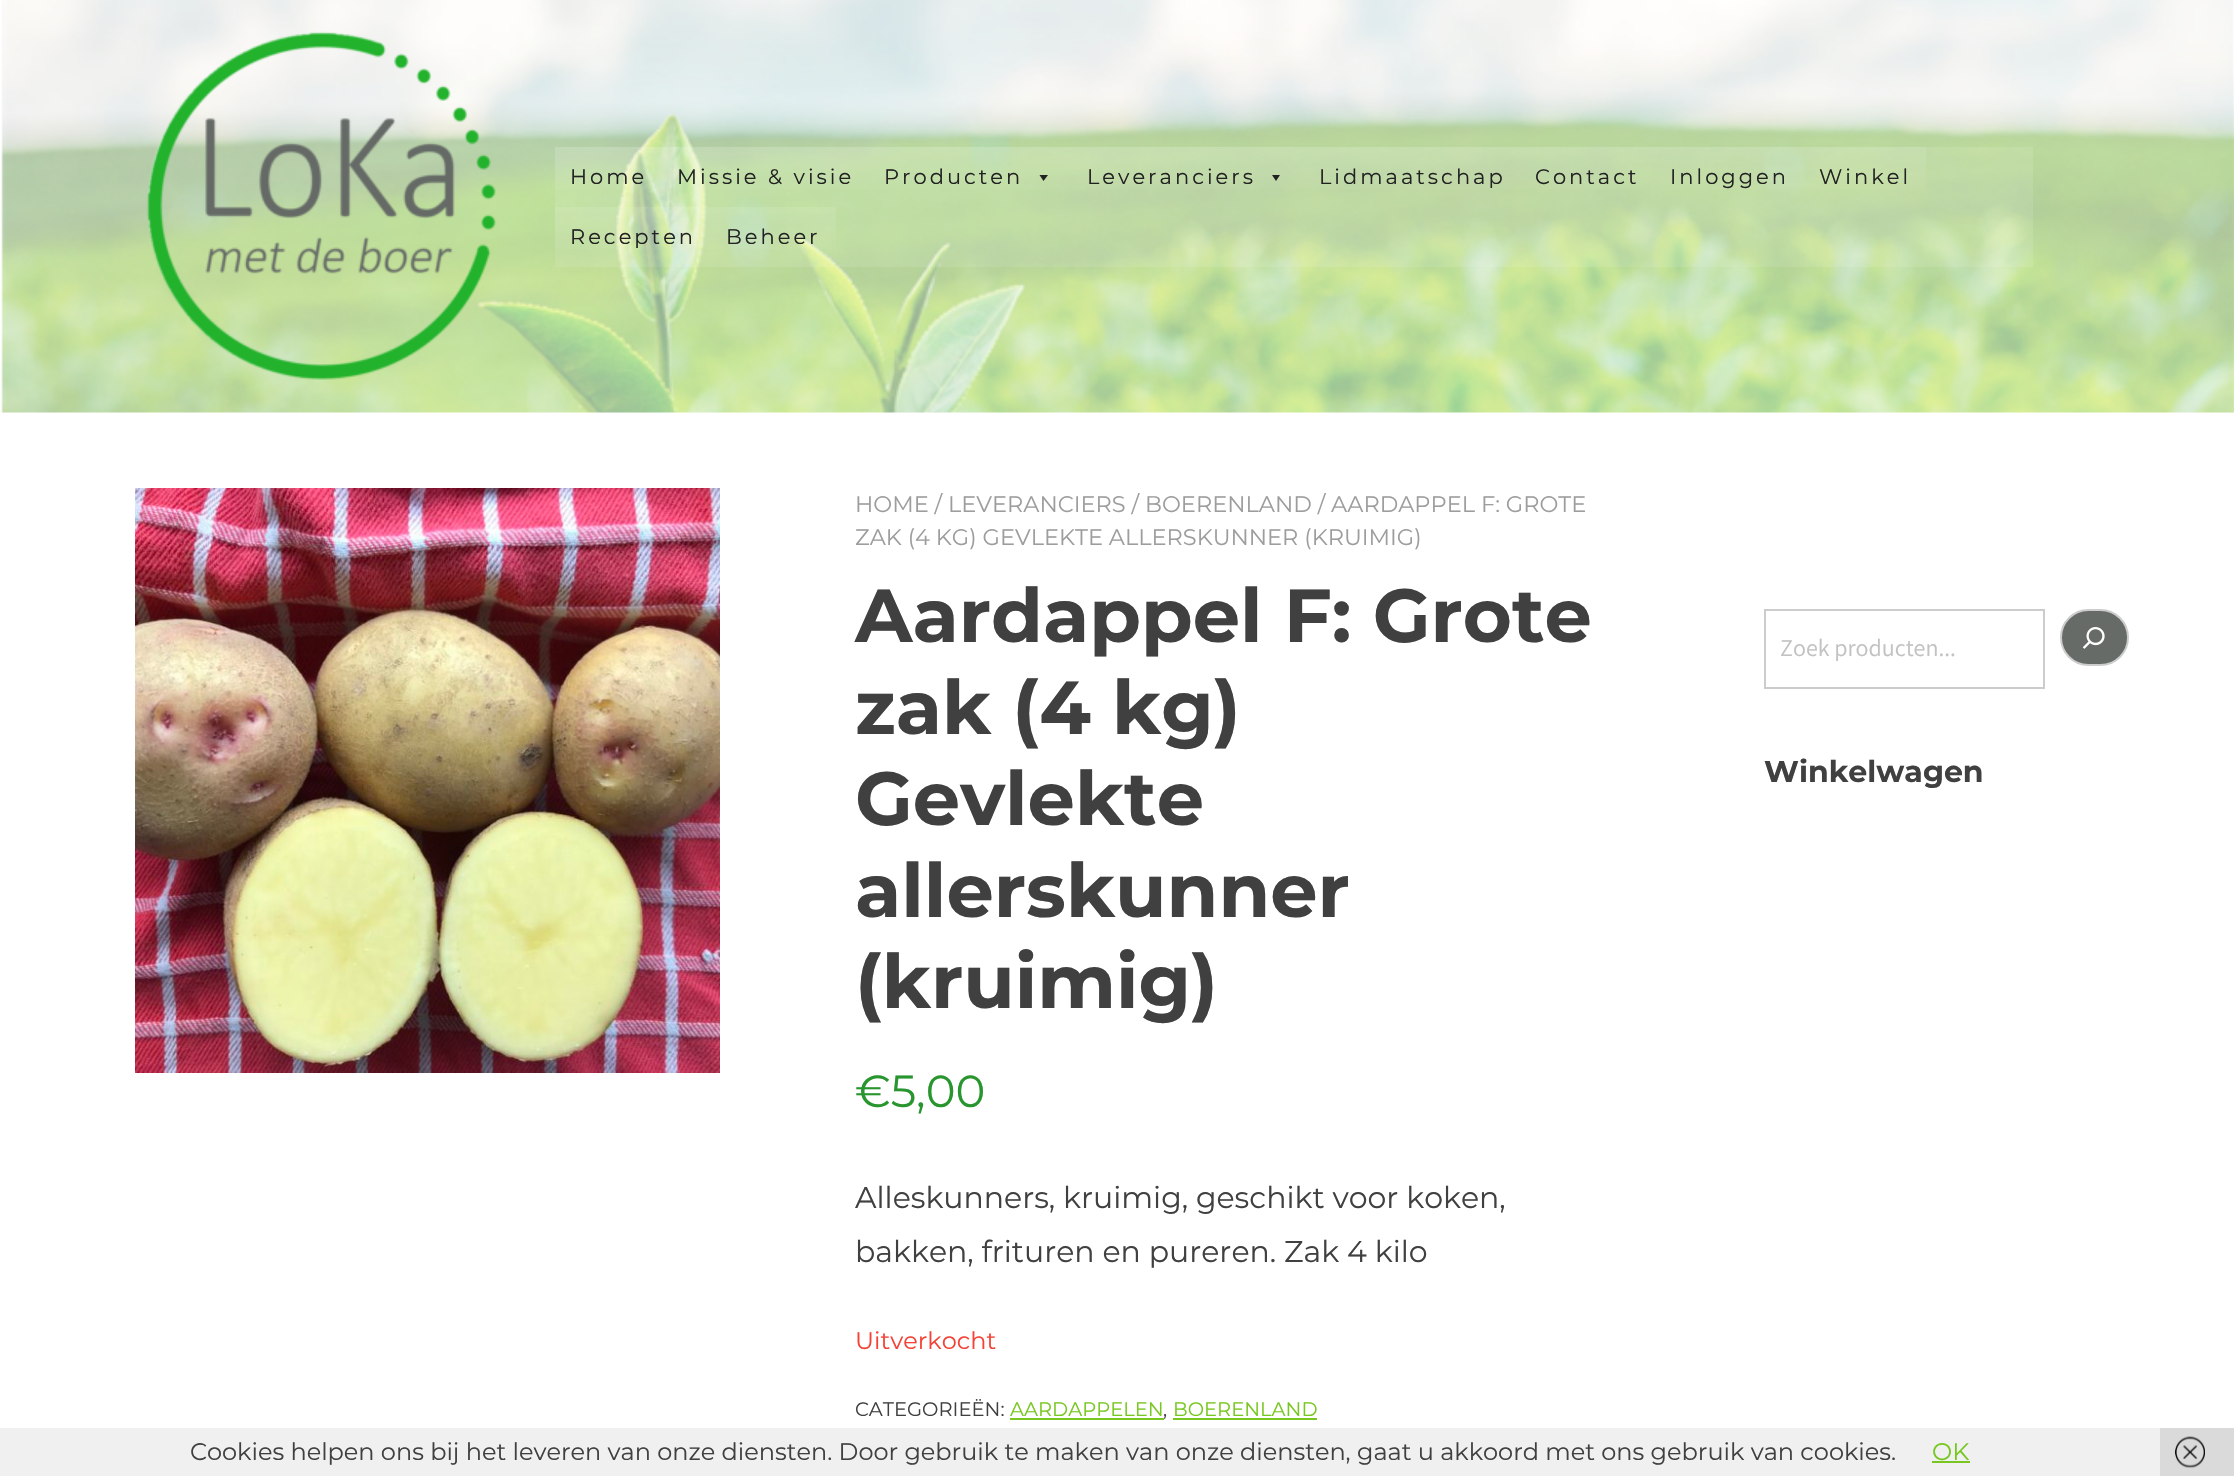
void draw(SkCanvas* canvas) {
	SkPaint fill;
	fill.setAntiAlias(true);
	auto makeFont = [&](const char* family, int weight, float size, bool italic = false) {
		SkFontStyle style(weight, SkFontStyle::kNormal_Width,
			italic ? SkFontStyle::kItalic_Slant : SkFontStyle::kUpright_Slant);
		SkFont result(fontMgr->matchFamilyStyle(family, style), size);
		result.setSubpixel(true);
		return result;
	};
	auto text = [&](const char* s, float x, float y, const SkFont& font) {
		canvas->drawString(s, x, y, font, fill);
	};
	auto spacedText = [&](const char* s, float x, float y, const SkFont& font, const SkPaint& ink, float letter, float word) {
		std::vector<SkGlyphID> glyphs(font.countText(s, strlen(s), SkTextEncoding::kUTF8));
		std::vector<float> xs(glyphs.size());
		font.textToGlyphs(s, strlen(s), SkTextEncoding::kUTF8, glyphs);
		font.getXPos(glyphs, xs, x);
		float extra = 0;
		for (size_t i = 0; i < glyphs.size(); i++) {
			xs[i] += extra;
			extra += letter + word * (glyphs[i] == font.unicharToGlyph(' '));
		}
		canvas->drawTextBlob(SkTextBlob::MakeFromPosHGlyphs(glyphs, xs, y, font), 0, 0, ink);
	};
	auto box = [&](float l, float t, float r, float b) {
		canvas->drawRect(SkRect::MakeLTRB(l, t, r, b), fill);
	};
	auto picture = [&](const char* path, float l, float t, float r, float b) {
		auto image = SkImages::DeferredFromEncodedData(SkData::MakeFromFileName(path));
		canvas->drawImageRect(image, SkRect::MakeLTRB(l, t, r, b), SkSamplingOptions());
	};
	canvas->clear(0xFFFFFFFF);
	picture("image0.png", 1, 0, 2234, 413);
	picture("image1.png", 146, 31, 496, 380);
	fill.setColor(0x1AFFFFFF);
	box(555, 147, 2033, 267);
	{
		const SkColor colors[] = {0x1AFFFFFF, 0x00FFFFFF};
		const float stops[] = {0, 1};
		const SkPoint ends[] = {{608, 147}, {608, 207}};
		fill.setShader(SkGradientShader::MakeLinear(ends, colors, stops, 2, SkTileMode::kClamp));
		fill.setAlpha(255);
	}
	box(555, 147, 662, 189);
	{
		const SkColor colors[] = {0x1AFFFFFF, 0x00FFFFFF};
		const float stops[] = {0, 1};
		const SkPoint ends[] = {{766, 147}, {766, 207}};
		fill.setShader(SkGradientShader::MakeLinear(ends, colors, stops, 2, SkTileMode::kClamp));
		fill.setAlpha(255);
	}
	box(662, 147, 870, 189);
	{
		const SkColor colors[] = {0x1AFFFFFF, 0x00FFFFFF};
		const float stops[] = {0, 1};
		const SkPoint ends[] = {{971, 147}, {971, 207}};
		fill.setShader(SkGradientShader::MakeLinear(ends, colors, stops, 2, SkTileMode::kClamp));
		fill.setAlpha(255);
	}
	box(870, 147, 1071, 189);
	fill.setShader(nullptr);
	fill.setColor(0xFF222222);
	canvas->drawPath(SkPathBuilder().moveTo(1048, 175).lineTo(1043.5f, 181).lineTo(1039.5f, 175).close().detach(), fill);
	{
		const SkColor colors[] = {0x1AFFFFFF, 0x00FFFFFF};
		const float stops[] = {0, 1};
		const SkPoint ends[] = {{1187, 147}, {1187, 207}};
		fill.setShader(SkGradientShader::MakeLinear(ends, colors, stops, 2, SkTileMode::kClamp));
		fill.setAlpha(255);
	}
	box(1071, 147, 1304, 189);
	fill.setShader(nullptr);
	fill.setColor(0xFF222222);
	canvas->drawPath(SkPathBuilder().moveTo(1280, 175).lineTo(1276, 181).lineTo(1272, 175).close().detach(), fill);
	{
		const SkColor colors[] = {0x1AFFFFFF, 0x00FFFFFF};
		const float stops[] = {0, 1};
		const SkPoint ends[] = {{1412, 147}, {1412, 207}};
		fill.setShader(SkGradientShader::MakeLinear(ends, colors, stops, 2, SkTileMode::kClamp));
		fill.setAlpha(255);
	}
	box(1304, 147, 1521, 189);
	{
		const SkColor colors[] = {0x1AFFFFFF, 0x00FFFFFF};
		const float stops[] = {0, 1};
		const SkPoint ends[] = {{1588, 147}, {1588, 207}};
		fill.setShader(SkGradientShader::MakeLinear(ends, colors, stops, 2, SkTileMode::kClamp));
		fill.setAlpha(255);
	}
	box(1521, 147, 1655, 189);
	{
		const SkColor colors[] = {0x1AFFFFFF, 0x00FFFFFF};
		const float stops[] = {0, 1};
		const SkPoint ends[] = {{1730, 147}, {1730, 207}};
		fill.setShader(SkGradientShader::MakeLinear(ends, colors, stops, 2, SkTileMode::kClamp));
		fill.setAlpha(255);
	}
	box(1655, 147, 1805, 189);
	{
		const SkColor colors[] = {0x1AFFFFFF, 0x00FFFFFF};
		const float stops[] = {0, 1};
		const SkPoint ends[] = {{1865, 147}, {1865, 207}};
		fill.setShader(SkGradientShader::MakeLinear(ends, colors, stops, 2, SkTileMode::kClamp));
		fill.setAlpha(255);
	}
	box(1805, 147, 1926, 189);
	{
		const SkColor colors[] = {0x1AFFFFFF, 0x00FFFFFF};
		const float stops[] = {0, 1};
		const SkPoint ends[] = {{633, 207}, {633, 267}};
		fill.setShader(SkGradientShader::MakeLinear(ends, colors, stops, 2, SkTileMode::kClamp));
		fill.setAlpha(255);
	}
	box(555, 207, 711, 249);
	{
		const SkColor colors[] = {0x1AFFFFFF, 0x00FFFFFF};
		const float stops[] = {0, 1};
		const SkPoint ends[] = {{773, 207}, {773, 267}};
		fill.setShader(SkGradientShader::MakeLinear(ends, colors, stops, 2, SkTileMode::kClamp));
		fill.setAlpha(255);
	}
	box(711, 207, 836, 249);
	picture("image2.png", 135, 488, 720, 1073);
	fill.setShader(nullptr);
	fill.setColor(0xFF77C720);
	box(1010, 1418, 1164, 1420);
	box(1173, 1418, 1317, 1420);
	fill.setStyle(SkPaint::kStroke_Style);
	fill.setStrokeWidth(2);
	fill.setColor(0xFFCCCCCC);
	canvas->drawRect(SkRect::MakeLTRB(1765, 610, 2044, 688), fill);
	fill.setStyle(SkPaint::kFill_Style);
	fill.setColor(0xFF666B67);
	canvas->drawRoundRect(SkRect::MakeLTRB(2061, 610, 2128, 665), 27.5f, 27.5f, fill);
	fill.setStyle(SkPaint::kStroke_Style);
	fill.setColor(0xFFCCCCCC);
	canvas->drawRoundRect(SkRect::MakeLTRB(2061, 610, 2128, 665), 27.5f, 27.5f, fill);
	picture("image3.png", 2082, 627, 2105, 649);
	fill.setStyle(SkPaint::kFill_Style);
	fill.setColor(0xFFF0F0F0);
	box(0, 1428, 2160, 1476);
	fill.setColor(0xFF77C720);
	box(1932, 1461, 1970, 1463);
	fill.setColor(0xFFDADADA);
	box(2160, 1428, 2234, 1476);
	picture("image4.png", 2175, 1436, 2205, 1468);
	auto font1 = makeFont("Montserrat", 400, 21);
	fill.setColor(0xFF222222);
	spacedText("Home", 570, 184, font1, fill, 3, 0);
	spacedText("Missie & visie", 677, 184, font1, fill, 3, 0);
	spacedText("Producten", 884, 184, font1, fill, 3, 0);
	spacedText("Leveranciers", 1087, 184, font1, fill, 3, 0);
	spacedText("Lidmaatschap", 1319, 184, font1, fill, 3, 0);
	spacedText("Contact", 1535, 184, font1, fill, 3, 0);
	spacedText("Inloggen", 1670, 184, font1, fill, 3, 0);
	spacedText("Winkel", 1819, 184, font1, fill, 3, 0);
	spacedText("Recepten", 570, 244, font1, fill, 3, 0);
	spacedText("Beheer", 726, 244, font1, fill, 3, 0);
	auto font2 = makeFont("Montserrat", 400, 22.5f);
	fill.setColor(0xFF9D9D9D);
	text("HOME / LEVERANCIERS / BOERENLAND / AARDAPPEL F: GROTE", 855, 512, font2);
	text("ZAK (4 KG) GEVLEKTE ALLERSKUNNER (KRUIMIG)", 855, 545, font2);
	auto font3 = makeFont("Montserrat", 700, 75);
	fill.setColor(0xFF404040);
	text("Aardappel F: Grote", 855, 642, font3);
	text("zak (4 kg)", 855, 734, font3);
	text("Gevlekte", 855, 825, font3);
	text("allerskunner", 855, 917, font3);
	text("(kruimig)", 855, 1008, font3);
	auto font4 = makeFont("Montserrat", 400, 45);
	fill.setColor(0xFF28952F);
	text("€5,00", 855, 1107, font4);
	auto font5 = makeFont("Montserrat", 400, 30);
	fill.setColor(0xFF404040);
	text("Alleskunners, kruimig, geschikt voor koken,", 855, 1208, font5);
	text("bakken, frituren en pureren. Zak 4 kilo", 855, 1262, font5);
	auto font6 = makeFont("Montserrat", 400, 24);
	fill.setColor(0xFFF44336);
	text("Uitverkocht", 855, 1349, font6);
	auto font7 = makeFont("Montserrat", 400, 19.5f);
	fill.setColor(0xFF404040);
	text("CATEGORIEËN:", 855, 1416, font7);
	fill.setColor(0xFF77C720);
	text("AARDAPPELEN", 1010, 1416, font7);
	fill.setColor(0xFF404040);
	text(",", 1163, 1416, font7);
	fill.setColor(0xFF77C720);
	text("BOERENLAND", 1173, 1416, font7);
	auto font8 = makeFont("Assistant", 400, 24);
	fill.setColor(0xFFC2C2C2);
	text("Zoek producten...", 1780, 656, font8);
	auto font9 = makeFont("Montserrat", 700, 30);
	fill.setColor(0xFF404040);
	text("Winkelwagen", 1764, 782, font9);
	text("Cookies helpen ons bij het leveren van onze diensten. Door gebruik te maken van onze diensten, gaat u akkoord met ons gebruik van cookies.", 190, 1460, font6);
	fill.setColor(0xFF77C720);
	text("OK", 1932, 1460, font6);
}
